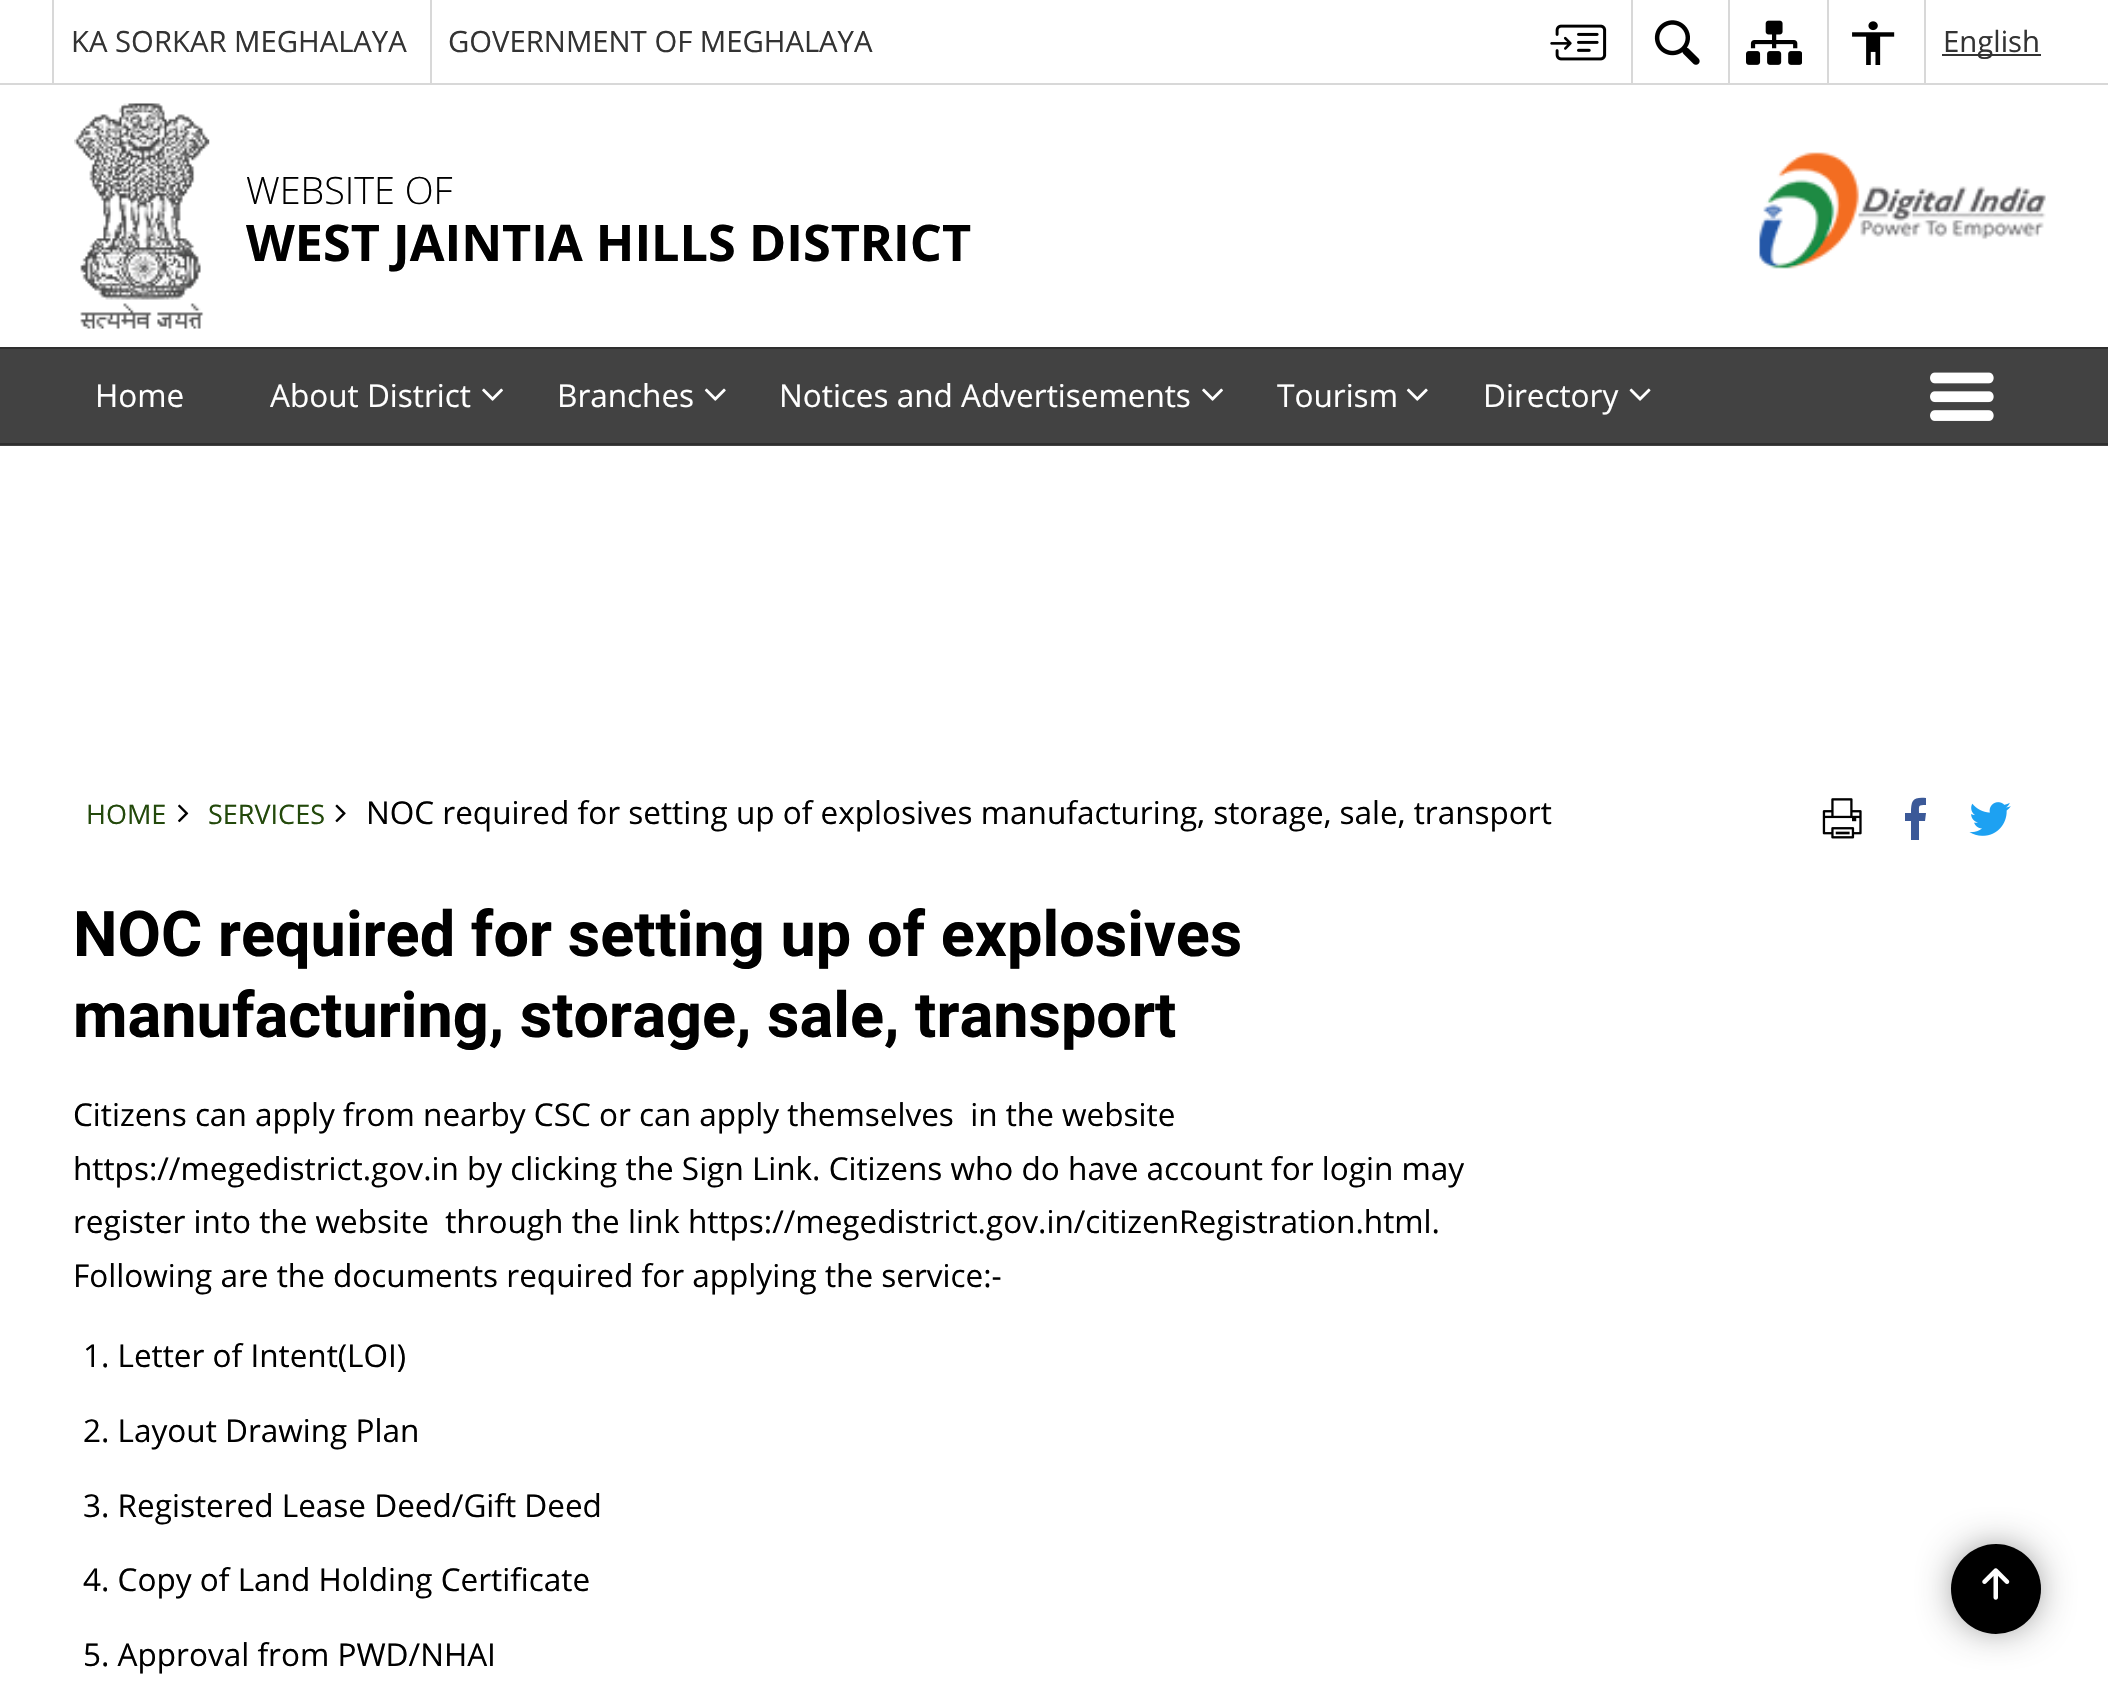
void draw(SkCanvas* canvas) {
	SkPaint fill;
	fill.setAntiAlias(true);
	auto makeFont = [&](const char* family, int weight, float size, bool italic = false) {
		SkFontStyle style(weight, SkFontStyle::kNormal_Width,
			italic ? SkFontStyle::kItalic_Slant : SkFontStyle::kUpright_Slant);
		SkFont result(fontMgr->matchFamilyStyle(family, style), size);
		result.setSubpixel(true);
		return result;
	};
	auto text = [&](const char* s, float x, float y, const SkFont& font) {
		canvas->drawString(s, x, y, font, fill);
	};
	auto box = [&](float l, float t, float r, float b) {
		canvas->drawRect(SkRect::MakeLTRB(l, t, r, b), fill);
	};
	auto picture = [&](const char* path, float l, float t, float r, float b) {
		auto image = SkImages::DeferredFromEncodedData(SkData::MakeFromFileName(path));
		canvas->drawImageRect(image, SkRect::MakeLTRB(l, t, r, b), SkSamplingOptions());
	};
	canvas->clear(0xFFFFFFFF);
	fill.setColor(0xFFD8D8D8);
	box(0, 83, 2108, 85);
	box(52, 0, 54, 83);
	box(430, 0, 432, 83);
	picture("image0.png", 1550, 24, 1607, 61);
	box(1631, 0, 1633, 83);
	picture("image1.png", 1654, 20, 1700, 65);
	box(1728, 0, 1730, 83);
	picture("image2.png", 1746, 20, 1802, 65);
	box(1827, 0, 1829, 83);
	picture("image3.png", 1852, 21, 1895, 65);
	box(1924, 0, 1926, 83);
	fill.setColor(0xFF333333);
	box(1942, 54, 2041, 56);
	picture("image4.png", 74, 103, 210, 329);
	picture("image5.png", 1759, 152, 2046, 269);
	fill.setColor(0xFF424242);
	box(0, 349, 2108, 446);
	fill.setColor(0xFF2E2E2E);
	box(0, 347, 2108, 349);
	box(0, 443, 2108, 445);
	picture("image6.png", 482, 388, 503, 401);
	picture("image7.png", 704, 388, 726, 401);
	picture("image6.png", 1202, 388, 1223, 401);
	picture("image7.png", 1406, 388, 1428, 401);
	picture("image8.png", 1629, 388, 1651, 401);
	picture("image9.png", 1930, 372, 1994, 421);
	picture("image10.png", 178, 804, 189, 823);
	picture("image11.png", 335, 804, 346, 823);
	picture("image12.png", 1822, 798, 1862, 839);
	fill.setColor(0xFF3B5998);
	canvas->drawPath(SkPathBuilder().moveTo(1926, 805).cubicTo(1918, 805, 1919, 805, 1919, 813).lineTo(1926, 813).lineTo(1925, 821).lineTo(1919, 821).lineTo(1919, 840).lineTo(1911, 840).lineTo(1911, 821).lineTo(1905, 821).lineTo(1905, 813).lineTo(1911, 813).cubicTo(1911, 800, 1913, 797, 1926, 798).close().detach(), fill);
	picture("image13.png", 1969, 802, 2011, 836);
	fill.setColor(0xFF3C3C3C);
	fill.setMaskFilter(SkMaskFilter::MakeBlur(kNormal_SkBlurStyle, 21.5f));
	canvas->drawRoundRect(SkRect::MakeLTRB(1962, 1555, 2030, 1622), 33.5f, 33.5f, fill);
	fill.setMaskFilter(nullptr);
	fill.setColor(0xFF000000);
	canvas->drawCircle(1996, 1589, 45, fill);
	picture("image14.png", 1982, 1568, 2010, 1600);
	auto font1 = makeFont("Open Sans", 400, 29.25f);
	fill.setColor(0xFF333333);
	text("KA SORKAR MEGHALAYA", 71, 52, font1);
	text("GOVERNMENT OF MEGHALAYA", 448, 52, font1);
	text("English", 1943, 52, font1);
	auto font2 = makeFont("Open Sans", 300, 37.75f);
	fill.setColor(0xFF000000);
	text("WEBSITE OF", 246, 204, font2);
	auto font3 = makeFont("Open Sans", 700, 50.4f);
	text("WEST JAINTIA HILLS DISTRICT", 246, 261, font3);
	auto font4 = makeFont("Open Sans", 400, 31.5f);
	fill.setColor(0xFFFFFFFF);
	text("Home", 95, 407, font4);
	text("About District", 270, 407, font4);
	text("Branches", 557, 407, font4);
	text("Notices and Advertisements", 779, 407, font4);
	text("Tourism", 1277, 407, font4);
	text("Directory", 1483, 407, font4);
	auto font5 = makeFont("Open Sans", 400, 27);
	fill.setColor(0xFF23490B);
	text("HOME", 86, 824, font5);
	text("SERVICES", 208, 824, font5);
	fill.setColor(0xFF000000);
	text("NOC required for setting up of explosives manufacturing, storage, sale, transport", 366, 824, font4);
	auto font6 = makeFont("Roboto", 700, 63);
	text("NOC required for setting up of explosives", 73, 956, font6);
	text("manufacturing, storage, sale, transport", 73, 1037, font6);
	text("Citizens can apply from nearby CSC or can apply themselves  in the website", 73, 1126, font4);
	text("https://megedistrict.gov.in by clicking the Sign Link. Citizens who do have account for login may", 73, 1180, font4);
	text("register into the website  through the link https://megedistrict.gov.in/citizenRegistration.html.", 73, 1233, font4);
	text("Following are the documents required for applying the service:-", 73, 1287, font4);
	text("1. Letter of Intent(LOI)", 83, 1367, font4);
	text("2. Layout Drawing Plan", 83, 1442, font4);
	text("3. Registered Lease Deed/Gift Deed", 83, 1517, font4);
	text("4. Copy of Land Holding Certificate", 83, 1591, font4);
	text("5. Approval from PWD/NHAI", 83, 1666, font4);
}
